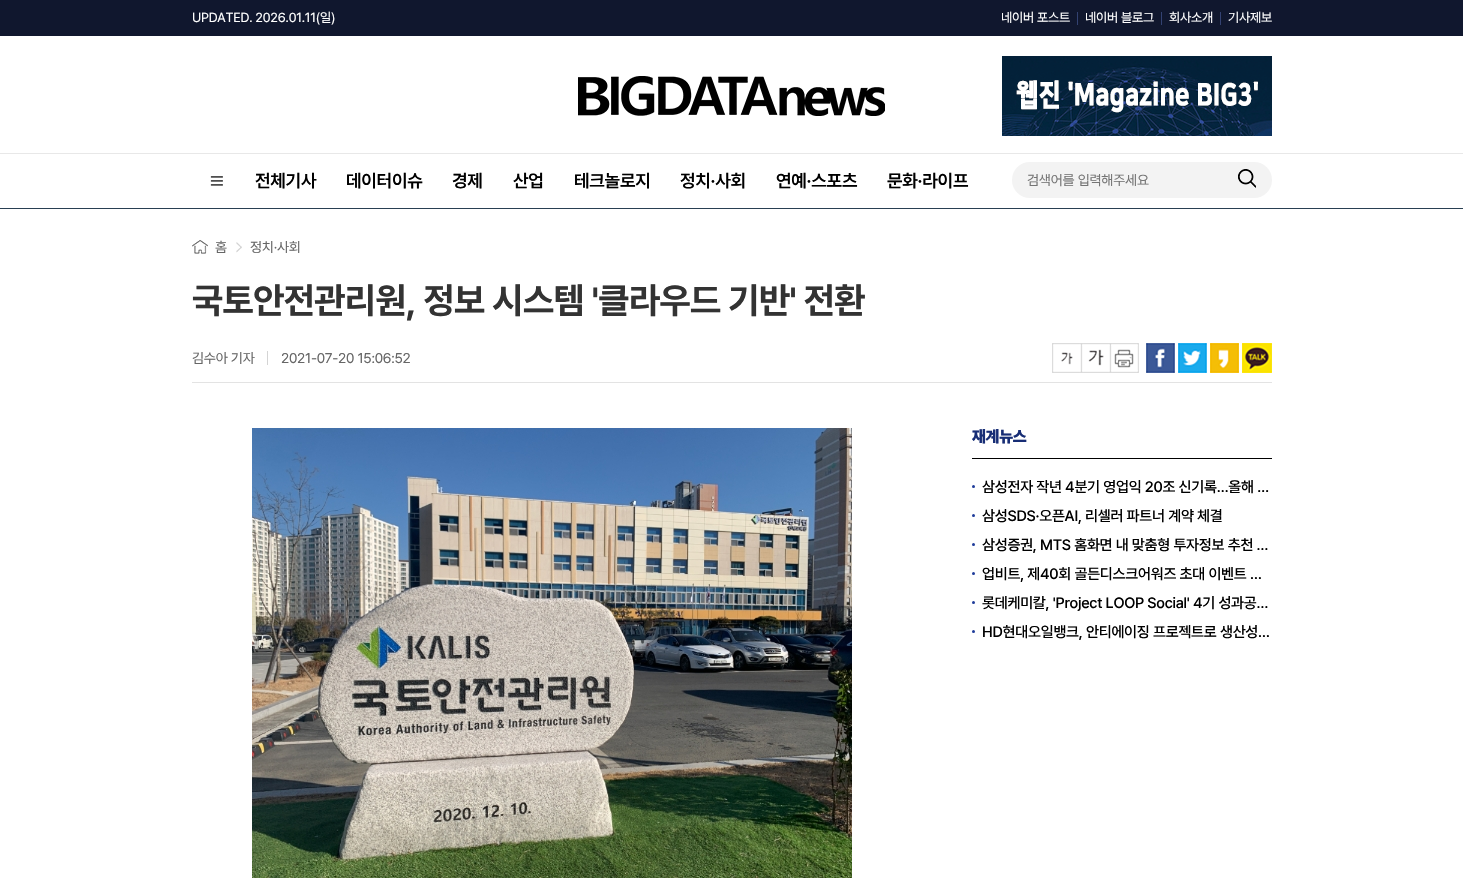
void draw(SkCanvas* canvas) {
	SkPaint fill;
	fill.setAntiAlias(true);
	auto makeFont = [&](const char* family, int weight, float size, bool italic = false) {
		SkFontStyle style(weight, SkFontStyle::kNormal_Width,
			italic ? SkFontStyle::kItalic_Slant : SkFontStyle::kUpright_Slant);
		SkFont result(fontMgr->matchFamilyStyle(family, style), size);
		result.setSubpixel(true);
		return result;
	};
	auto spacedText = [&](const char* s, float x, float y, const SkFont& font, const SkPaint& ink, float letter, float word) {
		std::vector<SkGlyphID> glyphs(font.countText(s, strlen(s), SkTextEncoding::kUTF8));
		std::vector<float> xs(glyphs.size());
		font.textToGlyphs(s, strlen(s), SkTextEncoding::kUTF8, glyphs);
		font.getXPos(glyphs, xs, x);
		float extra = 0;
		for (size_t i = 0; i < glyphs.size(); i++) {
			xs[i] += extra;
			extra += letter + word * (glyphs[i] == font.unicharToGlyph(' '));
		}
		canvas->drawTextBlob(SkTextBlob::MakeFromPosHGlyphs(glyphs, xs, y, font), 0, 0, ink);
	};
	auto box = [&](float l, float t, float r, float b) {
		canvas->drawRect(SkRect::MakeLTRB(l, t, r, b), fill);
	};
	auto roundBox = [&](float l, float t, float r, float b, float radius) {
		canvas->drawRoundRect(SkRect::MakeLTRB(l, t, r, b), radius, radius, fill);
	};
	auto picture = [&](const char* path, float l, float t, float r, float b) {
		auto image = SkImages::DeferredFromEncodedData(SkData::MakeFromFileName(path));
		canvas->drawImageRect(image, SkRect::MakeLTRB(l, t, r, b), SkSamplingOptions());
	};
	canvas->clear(0xFFFFFFFF);
	fill.setColor(0xFF10172E);
	box(0, 0, 1463, 36);
	fill.setColor(0xFF334272);
	box(1077, 12, 1078, 25);
	box(1161, 12, 1162, 25);
	box(1220, 12, 1221, 25);
	fill.setColor(0xFFE8E8E8);
	box(0, 153, 1463, 154);
	picture("image0.png", 578, 76, 885, 116);
	picture("image1.png", 1002, 56, 1272, 136);
	fill.setColor(0xFF293F52);
	box(0, 208, 1463, 209);
	picture("image2.png", 210, 176, 223, 186);
	fill.setColor(0xFFF3F3F3);
	roundBox(1012, 162, 1272, 198, 18);
	picture("image3.png", 1238, 169, 1256, 188);
	fill.setColor(0xFFE3E3E3);
	box(192, 382, 1272, 383);
	picture("image4.png", 192, 240, 208, 254);
	picture("image5.png", 236, 242, 242, 253);
	fill.setColor(0xFFD4D4D4);
	box(267, 351, 268, 365);
	picture("image6.png", 1052, 343, 1082, 373);
	picture("image7.png", 1082, 343, 1111, 373);
	picture("image8.png", 1111, 343, 1139, 373);
	picture("image9.png", 1146, 343, 1175, 373);
	picture("image10.png", 1178, 343, 1207, 373);
	picture("image11.png", 1210, 343, 1239, 373);
	picture("image12.png", 1242, 343, 1272, 373);
	picture("image13.png", 252, 428, 852, 878);
	fill.setColor(0xFF000000);
	box(972, 458, 1272, 459);
	fill.setColor(0xFF1E3B9A);
	canvas->drawCircle(973.5f, 486.5f, 1.5f, fill);
	canvas->drawCircle(973.5f, 515.5f, 1.5f, fill);
	canvas->drawCircle(973.5f, 544.5f, 1.5f, fill);
	canvas->drawCircle(973.5f, 573.5f, 1.5f, fill);
	canvas->drawCircle(973.5f, 602.5f, 1.5f, fill);
	canvas->drawCircle(973.5f, 631.5f, 1.5f, fill);
	auto font1 = makeFont("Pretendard", 400, 13);
	fill.setColor(0xFFFFFFFF);
	spacedText("UPDATED. 2026.01.11(일)", 192, 22, font1, fill, -0.2f, 0);
	spacedText("네이버 포스트", 1001, 22, font1, fill, -0.25f, 0);
	spacedText("네이버 블로그", 1085, 22, font1, fill, -0.25f, 0);
	spacedText("회사소개", 1169, 22, font1, fill, -0.25f, 0);
	spacedText("기사제보", 1228, 22, font1, fill, -0.25f, 0);
	auto font2 = makeFont("Pretendard", 600, 18);
	fill.setColor(0xFF000000);
	spacedText("전체기사", 255, 187, font2, fill, -0.25f, 0);
	spacedText("데이터이슈", 346, 187, font2, fill, -0.25f, 0);
	spacedText("경제", 452, 187, font2, fill, -0.25f, 0);
	spacedText("산업", 513, 187, font2, fill, -0.25f, 0);
	spacedText("테크놀로지", 574, 187, font2, fill, -0.25f, 0);
	spacedText("정치·사회", 680, 187, font2, fill, -0.25f, 0);
	spacedText("연예·스포츠", 776, 187, font2, fill, -0.25f, 0);
	spacedText("문화·라이프", 887, 187, font2, fill, -0.25f, 0);
	auto font3 = makeFont("Pretendard", 400, 14);
	fill.setColor(0xFF757575);
	spacedText("검색어를 입력해주세요", 1027, 185, font3, fill, -0.25f, 0);
	fill.setColor(0xFF666666);
	spacedText("홈", 215, 252, font3, fill, -0.25f, 0);
	spacedText("정치·사회", 250, 252, font3, fill, -0.25f, 0);
	auto font4 = makeFont("Pretendard", 700, 36);
	fill.setColor(0xFF333333);
	spacedText("국토안전관리원, 정보 시스템 '클라우드 기반' 전환", 192, 313, font4, fill, -0.55f, 0);
	fill.setColor(0xFF666666);
	spacedText("김수아 기자", 192, 363, font3, fill, -0.25f, 0);
	spacedText("2021-07-20 15:06:52", 281, 363, font3, fill, -0.25f, 0);
	auto font5 = makeFont("Pretendard", 900, 16);
	fill.setColor(0xFF172D75);
	spacedText("재계뉴스", 972, 442, font5, fill, -0.25f, 0);
	auto font6 = makeFont("Pretendard", 500, 15);
	fill.setColor(0xFF000000);
	spacedText("삼성전자 작년 4분기 영업익 20조 신기록…올해 …", 982, 492, font6, fill, -0.25f, 0);
	spacedText("삼성SDS·오픈AI, 리셀러 파트너 계약 체결", 982, 521, font6, fill, -0.25f, 0);
	spacedText("삼성증권, MTS 홈화면 내 맞춤형 투자정보 추천 …", 982, 550, font6, fill, -0.25f, 0);
	spacedText("업비트, 제40회 골든디스크어워즈 초대 이벤트 …", 982, 579, font6, fill, -0.25f, 0);
	spacedText("롯데케미칼, 'Project LOOP Social' 4기 성과공…", 982, 608, font6, fill, -0.25f, 0);
	spacedText("HD현대오일뱅크, 안티에이징 프로젝트로 생산성…", 982, 637, font6, fill, -0.25f, 0);
}
